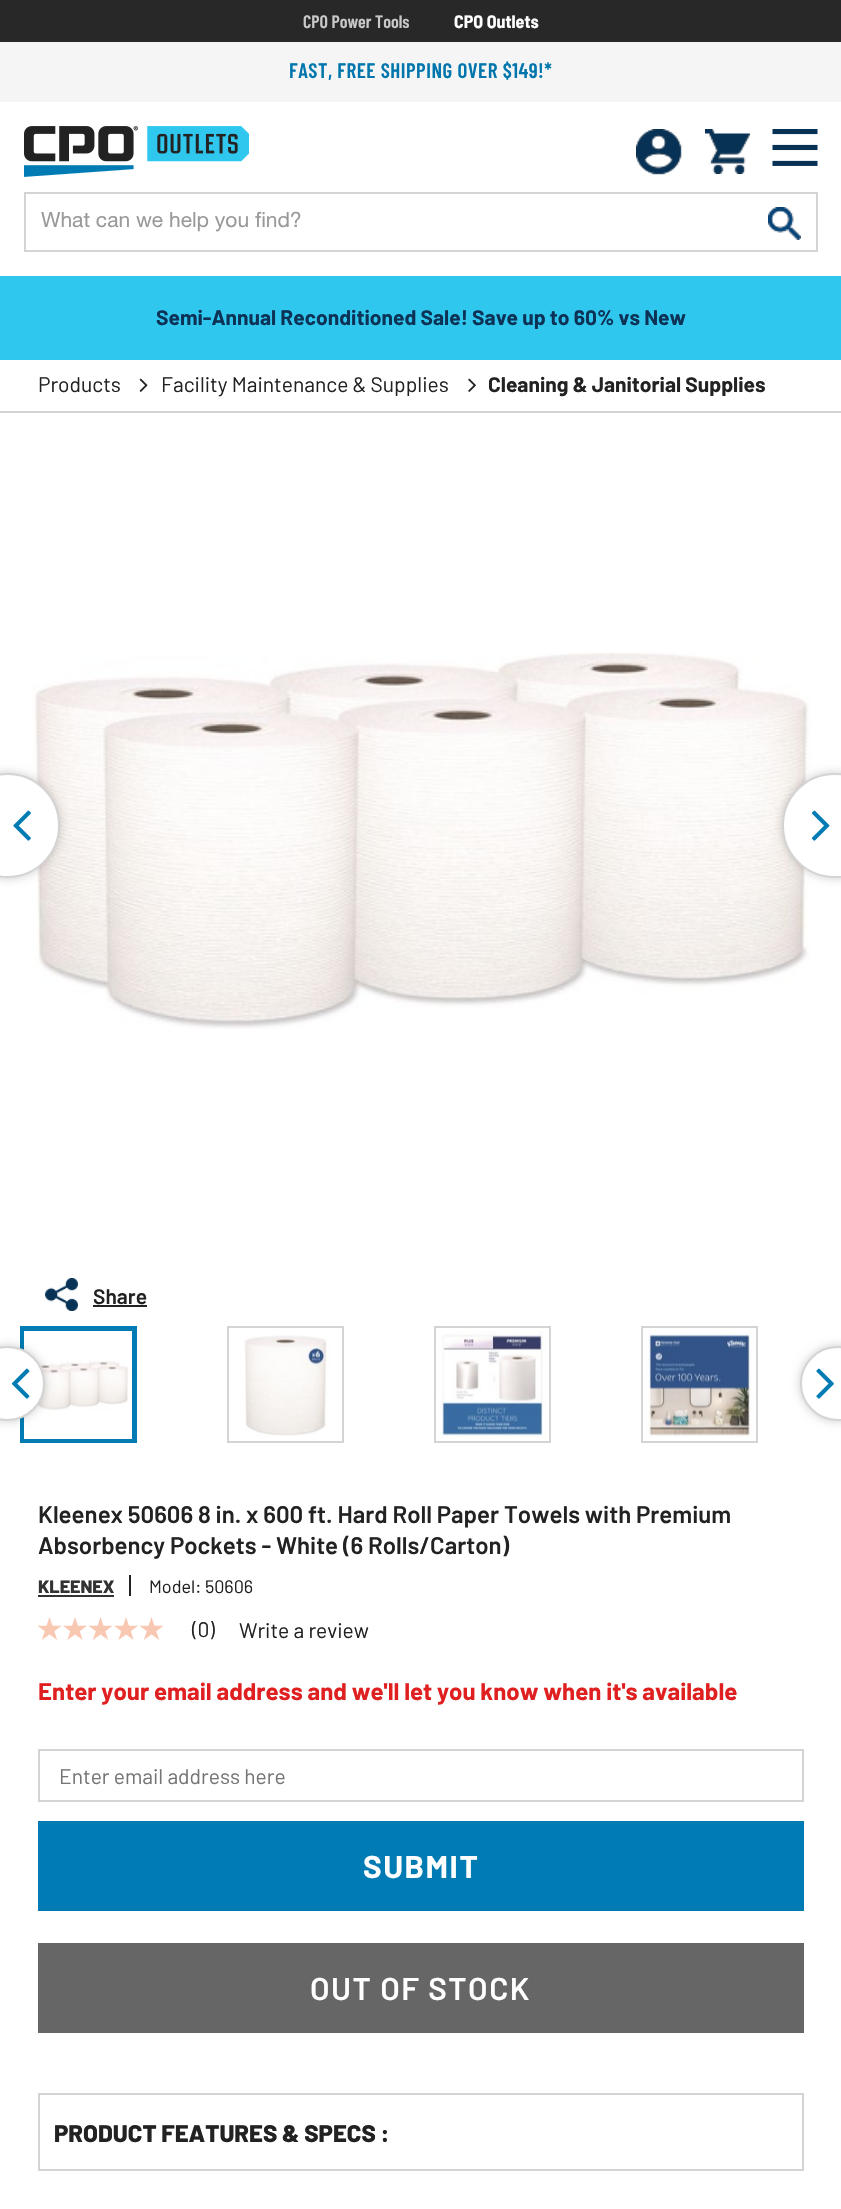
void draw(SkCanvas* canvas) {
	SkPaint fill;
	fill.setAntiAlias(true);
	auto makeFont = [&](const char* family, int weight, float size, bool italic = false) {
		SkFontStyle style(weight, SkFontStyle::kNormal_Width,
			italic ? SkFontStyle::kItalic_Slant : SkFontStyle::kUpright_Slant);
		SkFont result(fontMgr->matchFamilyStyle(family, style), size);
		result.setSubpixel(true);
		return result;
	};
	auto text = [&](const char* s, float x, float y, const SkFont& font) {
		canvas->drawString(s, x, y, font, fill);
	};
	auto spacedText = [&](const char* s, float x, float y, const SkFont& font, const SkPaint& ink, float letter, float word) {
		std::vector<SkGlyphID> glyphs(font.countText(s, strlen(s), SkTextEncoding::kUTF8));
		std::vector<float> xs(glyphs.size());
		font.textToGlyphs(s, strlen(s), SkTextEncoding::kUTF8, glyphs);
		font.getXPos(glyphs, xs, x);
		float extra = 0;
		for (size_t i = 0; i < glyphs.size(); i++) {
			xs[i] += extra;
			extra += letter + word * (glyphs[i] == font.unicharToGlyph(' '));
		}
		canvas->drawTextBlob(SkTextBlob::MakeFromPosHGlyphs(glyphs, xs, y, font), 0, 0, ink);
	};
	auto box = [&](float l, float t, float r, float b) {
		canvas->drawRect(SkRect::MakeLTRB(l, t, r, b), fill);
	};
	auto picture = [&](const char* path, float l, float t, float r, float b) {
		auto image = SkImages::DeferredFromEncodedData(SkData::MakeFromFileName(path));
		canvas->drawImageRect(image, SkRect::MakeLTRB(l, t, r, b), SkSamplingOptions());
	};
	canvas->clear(0xFFFFFFFF);
	fill.setColor(0xFFF5F5F6);
	box(0, 42, 841, 102);
	fill.setColor(0xFF282828);
	box(0, 0, 841, 42);
	picture("image0.png", 24, 126, 249, 177);
	picture("image1.png", 636, 129, 682, 175);
	picture("image2.png", 705, 129, 750, 174);
	picture("image3.png", 772, 129, 818, 166);
	fill.setStyle(SkPaint::kStroke_Style);
	fill.setStrokeWidth(2);
	fill.setColor(0xFFD4D4D4);
	canvas->drawRect(SkRect::MakeLTRB(25, 193, 817, 251), fill);
	picture("image4.png", 768, 207, 801, 240);
	fill.setStyle(SkPaint::kFill_Style);
	fill.setColor(0xFF30C7EF);
	box(0, 276, 841, 360);
	picture("image5.png", 139, 378, 148, 392);
	picture("image6.png", 468, 378, 476, 392);
	fill.setColor(0xFFD4D4D4);
	box(0, 411, 841, 413);
	picture("image8.png", 31, 652, 811, 1029);
	fill.setColor(0x33000000);
	fill.setMaskFilter(SkMaskFilter::MakeBlur(kNormal_SkBlurStyle, 5));
	canvas->drawRoundRect(SkRect::MakeLTRB(-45, 773, 60, 878), 52.5f, 52.5f, fill);
	fill.setMaskFilter(nullptr);
	fill.setColor(0xFFFFFFFF);
	canvas->drawCircle(7.5f, 825.5f, 51.5f, fill);
	fill.setStyle(SkPaint::kStroke_Style);
	fill.setColor(0xFFD4D4D4);
	canvas->drawCircle(7.5f, 825.5f, 51.5f, fill);
	picture("image7.png", 13, 810, 31, 841);
	fill.setStyle(SkPaint::kFill_Style);
	fill.setColor(0x33000000);
	fill.setMaskFilter(SkMaskFilter::MakeBlur(kNormal_SkBlurStyle, 5));
	canvas->drawRoundRect(SkRect::MakeLTRB(782, 773, 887, 878), 52.5f, 52.5f, fill);
	fill.setMaskFilter(nullptr);
	fill.setColor(0xFFFFFFFF);
	canvas->drawCircle(834.5f, 825.5f, 51.5f, fill);
	fill.setStyle(SkPaint::kStroke_Style);
	fill.setColor(0xFFD4D4D4);
	canvas->drawCircle(834.5f, 825.5f, 51.5f, fill);
	picture("image9.png", 811, 810, 830, 841);
	fill.setStyle(SkPaint::kFill_Style);
	fill.setColor(0xFF007BB3);
	box(20, 1326, 137, 1443);
	picture("image11.png", 24, 1331, 132, 1439);
	fill.setColor(0x33000000);
	fill.setMaskFilter(SkMaskFilter::MakeBlur(kNormal_SkBlurStyle, 5));
	canvas->drawRoundRect(SkRect::MakeLTRB(-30, 1346, 45, 1421), 37.5f, 37.5f, fill);
	fill.setMaskFilter(nullptr);
	fill.setColor(0xFFFFFFFF);
	canvas->drawCircle(7.5f, 1383.5f, 36.5f, fill);
	fill.setStyle(SkPaint::kStroke_Style);
	fill.setColor(0xFFD4D4D4);
	canvas->drawCircle(7.5f, 1383.5f, 36.5f, fill);
	picture("image10.png", 11, 1368, 30, 1399);
	canvas->drawRect(SkRect::MakeLTRB(228, 1327, 343, 1442), fill);
	picture("image12.png", 244, 1335, 331, 1436);
	canvas->drawRect(SkRect::MakeLTRB(435, 1327, 550, 1442), fill);
	picture("image13.png", 438, 1331, 546, 1439);
	canvas->drawRect(SkRect::MakeLTRB(642, 1327, 757, 1442), fill);
	picture("image14.png", 645, 1331, 753, 1438);
	fill.setStyle(SkPaint::kFill_Style);
	fill.setColor(0x33000000);
	fill.setMaskFilter(SkMaskFilter::MakeBlur(kNormal_SkBlurStyle, 5));
	canvas->drawRoundRect(SkRect::MakeLTRB(800, 1346, 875, 1421), 37.5f, 37.5f, fill);
	fill.setMaskFilter(nullptr);
	fill.setColor(0xFFFFFFFF);
	canvas->drawCircle(837.5f, 1383.5f, 36.5f, fill);
	fill.setStyle(SkPaint::kStroke_Style);
	fill.setColor(0xFFD4D4D4);
	canvas->drawCircle(837.5f, 1383.5f, 36.5f, fill);
	picture("image15.png", 816, 1368, 834, 1399);
	picture("image16.png", 45, 1278, 78, 1311);
	fill.setStyle(SkPaint::kFill_Style);
	fill.setColor(0xFF222222);
	box(93, 1305, 147, 1307);
	box(129, 1575, 131, 1596);
	fill.setColor(0xFF333333);
	box(38, 1595, 114, 1597);
	picture("image17.png", 38, 1617, 62, 1640);
	picture("image18.png", 63, 1617, 87, 1640);
	picture("image19.png", 88, 1617, 113, 1640);
	picture("image18.png", 114, 1617, 138, 1640);
	picture("image19.png", 139, 1617, 164, 1640);
	fill.setStyle(SkPaint::kStroke_Style);
	fill.setColor(0xFFD4D4D4);
	canvas->drawRect(SkRect::MakeLTRB(39, 1750, 803, 1801), fill);
	fill.setStyle(SkPaint::kFill_Style);
	fill.setColor(0xFF007BB3);
	box(38, 1821, 804, 1911);
	fill.setColor(0xFF666666);
	box(38, 1943, 804, 2033);
	fill.setStyle(SkPaint::kStroke_Style);
	fill.setColor(0xFFD4D4D4);
	canvas->drawRect(SkRect::MakeLTRB(39, 2094, 803, 2170), fill);
	auto font1 = makeFont("Barlow Condensed", 600, 18);
	fill.setStyle(SkPaint::kFill_Style);
	fill.setColor(0xFFC9C9C9);
	text("CPO Power Tools", 303, 28, font1);
	auto font2 = makeFont("Barlow Semi Condensed", 700, 18);
	fill.setColor(0xFFFFFFFF);
	text("CPO Outlets", 454, 28, font2);
	auto font3 = makeFont("Barlow Condensed", 600, 21);
	fill.setColor(0xFF0076AC);
	spacedText("FAST, FREE SHIPPING OVER $149!*", 289, 78, font3, fill, 0.5f, 0);
	auto font4 = makeFont("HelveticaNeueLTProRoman", 400, 21);
	fill.setColor(0xFF999999);
	text("What can we help you find?", 41, 227, font4);
	auto font5 = makeFont("Barlow", 700, 21);
	fill.setColor(0xFF0C3256);
	text("Semi-Annual Reconditioned Sale! Save up to 60% vs New", 156, 325, font5);
	auto font6 = makeFont("Barlow", 400, 21);
	fill.setColor(0xFF222222);
	text("Products", 38, 392, font6);
	text("Facility Maintenance & Supplies", 161, 392, font6);
	text("Cleaning & Janitorial Supplies", 488, 392, font5);
	auto font7 = makeFont("Barlow", 600, 21);
	text("Share", 93, 1304, font7);
	auto font8 = makeFont("Barlow", 600, 24);
	text("Kleenex 50606 8 in. x 600 ft. Hard Roll Paper Towels with Premium", 38, 1523, font8);
	text("Absorbency Pockets - White (6 Rolls/Carton)", 38, 1554, font8);
	auto font9 = makeFont("Barlow", 800, 18);
	fill.setColor(0xFF333333);
	text("KLEENEX", 38, 1593, font9);
	auto font10 = makeFont("Barlow", 400, 18);
	fill.setColor(0xFF222222);
	text("Model: 50606", 149, 1593, font10);
	text("(0)", 192, 1637, font6);
	text("Write a review", 239, 1638, font6);
	auto font11 = makeFont("Barlow", 700, 24);
	fill.setColor(0xFFE02020);
	text("Enter your email address and we'll let you know when it's available", 38, 1700, font11);
	fill.setColor(0xFF757575);
	text("Enter email address here", 59, 1784, font6);
	auto font12 = makeFont("Barlow", 700, 31.5f);
	fill.setColor(0xFFFFFFFF);
	spacedText("SUBMIT", 363, 1878, font12, fill, 1.5f, 0);
	auto font13 = makeFont("Barlow", 600, 31.5f);
	spacedText("OUT OF STOCK", 310, 2000, font13, fill, 1.5f, 0);
	auto font14 = makeFont("Barlow", 800, 24);
	fill.setColor(0xFF222222);
	text("PRODUCT FEATURES & SPECS :", 54, 2142, font14);
}
